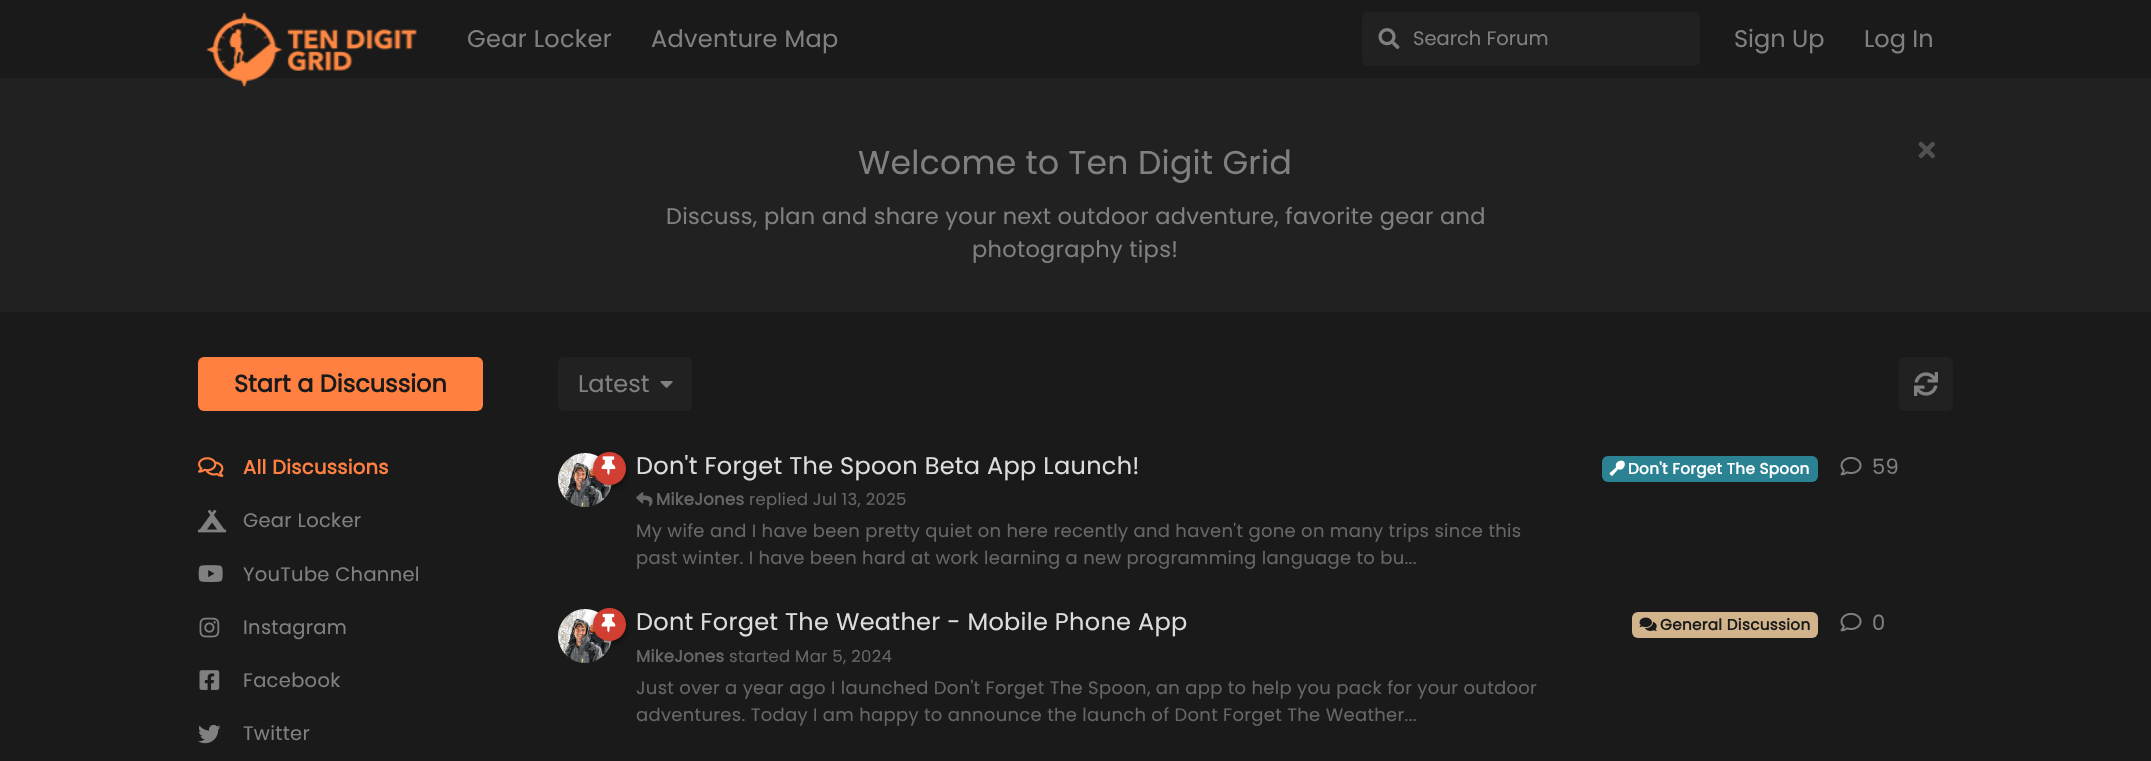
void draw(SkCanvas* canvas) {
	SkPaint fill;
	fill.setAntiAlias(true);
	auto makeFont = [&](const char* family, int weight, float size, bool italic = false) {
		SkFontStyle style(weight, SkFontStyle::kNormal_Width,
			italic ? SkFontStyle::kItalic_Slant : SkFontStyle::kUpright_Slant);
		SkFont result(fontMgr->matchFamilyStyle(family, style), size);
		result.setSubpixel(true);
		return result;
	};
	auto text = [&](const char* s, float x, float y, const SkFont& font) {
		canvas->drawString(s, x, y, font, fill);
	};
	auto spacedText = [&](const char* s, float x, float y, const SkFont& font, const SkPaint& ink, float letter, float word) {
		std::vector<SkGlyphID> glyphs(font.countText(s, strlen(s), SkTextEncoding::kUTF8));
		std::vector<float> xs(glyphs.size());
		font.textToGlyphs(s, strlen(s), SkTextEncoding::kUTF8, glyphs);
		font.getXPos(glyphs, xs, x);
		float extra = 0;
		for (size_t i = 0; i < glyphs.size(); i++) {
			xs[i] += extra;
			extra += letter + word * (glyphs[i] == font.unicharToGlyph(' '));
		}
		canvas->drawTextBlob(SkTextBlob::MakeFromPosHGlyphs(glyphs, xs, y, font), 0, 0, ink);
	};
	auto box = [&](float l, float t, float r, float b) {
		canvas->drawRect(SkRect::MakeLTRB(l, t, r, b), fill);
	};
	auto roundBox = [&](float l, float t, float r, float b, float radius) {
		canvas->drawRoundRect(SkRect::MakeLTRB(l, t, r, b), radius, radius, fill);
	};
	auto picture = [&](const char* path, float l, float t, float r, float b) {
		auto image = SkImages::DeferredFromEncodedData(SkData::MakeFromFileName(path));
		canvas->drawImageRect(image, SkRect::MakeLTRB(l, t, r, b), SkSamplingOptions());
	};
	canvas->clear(0xFF1A1A1A);
	fill.setColor(0xFF212121);
	box(0, 78, 2151, 312);
	picture("image0.png", 206, 12, 417, 87);
	roundBox(1362, 12, 1700, 66, 6);
	picture("image1.png", 1378, 28, 1400, 50);
	picture("image2.png", 1918, 141, 1935, 159);
	fill.setColor(0xFFFF8040);
	roundBox(198, 357, 483, 411, 6);
	picture("image3.png", 198, 457, 224, 477);
	picture("image4.png", 198, 509, 227, 533);
	picture("image5.png", 198, 565, 223, 582);
	picture("image6.png", 199, 617, 220, 638);
	picture("image7.png", 199, 670, 220, 690);
	picture("image8.png", 198, 724, 221, 744);
	fill.setColor(0xFF212121);
	roundBox(558, 357, 692, 411, 6);
	picture("image9.png", 660, 381, 673, 388);
	roundBox(1899, 357, 1953, 411, 6);
	picture("image10.png", 1914, 372, 1938, 396);
	canvas->drawCircle(585, 480, 27, fill);
	picture("image12.png", 558, 453, 612, 507);
	fill.setColor(0x80000000);
	fill.setMaskFilter(SkMaskFilter::MakeBlur(kNormal_SkBlurStyle, 3));
	canvas->drawRoundRect(SkRect::MakeLTRB(593, 455, 626, 488), 16.5f, 16.5f, fill);
	fill.setMaskFilter(nullptr);
	fill.setColor(0xFFD13E32);
	canvas->drawCircle(609.5f, 468.5f, 16.5f, fill);
	picture("image11.png", 601, 456, 616, 475);
	fill.setColor(0xFF2B8293);
	roundBox(1602, 456, 1818, 482, 6);
	picture("image13.png", 1609, 460, 1625, 476);
	picture("image14.png", 636, 492, 653, 507);
	picture("image15.png", 1840, 457, 1862, 476);
	fill.setColor(0xFF212121);
	canvas->drawCircle(585, 636, 27, fill);
	picture("image17.png", 558, 609, 612, 663);
	fill.setColor(0x80000000);
	fill.setMaskFilter(SkMaskFilter::MakeBlur(kNormal_SkBlurStyle, 3));
	canvas->drawRoundRect(SkRect::MakeLTRB(593, 611, 626, 644), 16.5f, 16.5f, fill);
	fill.setMaskFilter(nullptr);
	fill.setColor(0xFFD13E32);
	canvas->drawCircle(609.5f, 624.5f, 16.5f, fill);
	picture("image16.png", 601, 613, 616, 633);
	fill.setColor(0xFFD2B48C);
	roundBox(1632, 612, 1818, 638, 6);
	picture("image18.png", 1639, 617, 1657, 631);
	picture("image15.png", 1840, 613, 1862, 632);
	auto font1 = makeFont("Poppins", 400, 24);
	fill.setColor(0xFF808080);
	spacedText("Gear Locker", 467, 47, font1, fill, 0.3f, 0);
	spacedText("Adventure Map", 651, 47, font1, fill, 0.3f, 0);
	auto font2 = makeFont("Poppins", 400, 19.5f);
	text("Search Forum", 1413, 45, font2);
	text("Sign Up", 1734, 47, font1);
	text("Log In", 1864, 47, font1);
	auto font3 = makeFont("Poppins", 400, 33);
	spacedText("Welcome to Ten Digit Grid", 858, 174, font3, fill, 0.3f, 0);
	auto font4 = makeFont("Poppins", 400, 22.5f);
	spacedText("Discuss, plan and share your next outdoor adventure, favorite gear and", 666, 224, font4, fill, 0.3f, 0);
	spacedText("photography tips!", 972, 257, font4, fill, 0.3f, 0);
	auto font5 = makeFont("Poppins", 700, 24);
	fill.setColor(0xFF1A1A1A);
	text("Start a Discussion", 234, 392, font5);
	auto font6 = makeFont("Poppins", 700, 19.5f);
	fill.setColor(0xFFFF8040);
	spacedText("All Discussions", 243, 474, font6, fill, 0.3f, 0);
	fill.setColor(0xFF808080);
	spacedText("Gear Locker", 243, 527, font2, fill, 0.3f, 0);
	spacedText("YouTube Channel", 243, 581, font2, fill, 0.3f, 0);
	spacedText("Instagram", 243, 634, font2, fill, 0.3f, 0);
	spacedText("Facebook", 243, 687, font2, fill, 0.3f, 0);
	spacedText("Twitter", 243, 740, font2, fill, 0.3f, 0);
	text("Latest", 578, 392, font1);
	fill.setColor(0xFFDDDDDD);
	spacedText("Don't Forget The Spoon Beta App Launch!", 636, 474, font1, fill, 0.3f, 0);
	auto font7 = makeFont("Poppins", 700, 15.25f);
	fill.setColor(0xFFFFFFFF);
	spacedText("Don't Forget The Spoon", 1628, 474, font7, fill, 0.3f, 0);
	auto font8 = makeFont("Poppins", 700, 16.5f);
	fill.setColor(0xFF666666);
	spacedText("MikeJones", 656, 505, font8, fill, 0.3f, 0);
	auto font9 = makeFont("Poppins", 400, 16.5f);
	spacedText("replied Jul 13, 2025", 749, 505, font9, fill, 0.3f, 0);
	auto font10 = makeFont("Poppins", 400, 18);
	spacedText("My wife and I have been pretty quiet on here recently and haven't gone on many trips since this", 636, 537, font10, fill, 0.3f, 0);
	spacedText("past winter. I have been hard at work learning a new programming language to bu...", 636, 564, font10, fill, 0.3f, 0);
	auto font11 = makeFont("Poppins", 400, 21);
	fill.setColor(0xFF808080);
	spacedText("59", 1872, 474, font11, fill, 0.3f, 0);
	fill.setColor(0xFFDDDDDD);
	spacedText("Dont Forget The Weather - Mobile Phone App", 636, 630, font1, fill, 0.3f, 0);
	fill.setColor(0xFF1A1A1A);
	spacedText("General Discussion", 1660, 630, font7, fill, 0.3f, 0);
	fill.setColor(0xFF666666);
	spacedText("MikeJones", 636, 662, font8, fill, 0.3f, 0);
	spacedText("started Mar 5, 2024", 729, 662, font9, fill, 0.3f, 0);
	spacedText("Just over a year ago I launched Don't Forget The Spoon, an app to help you pack for your outdoor", 636, 694, font10, fill, 0.3f, 0);
	spacedText("adventures. Today I am happy to announce the launch of Dont Forget The Weather...", 636, 721, font10, fill, 0.3f, 0);
	fill.setColor(0xFF808080);
	spacedText("0", 1872, 630, font11, fill, 0.3f, 0);
}
